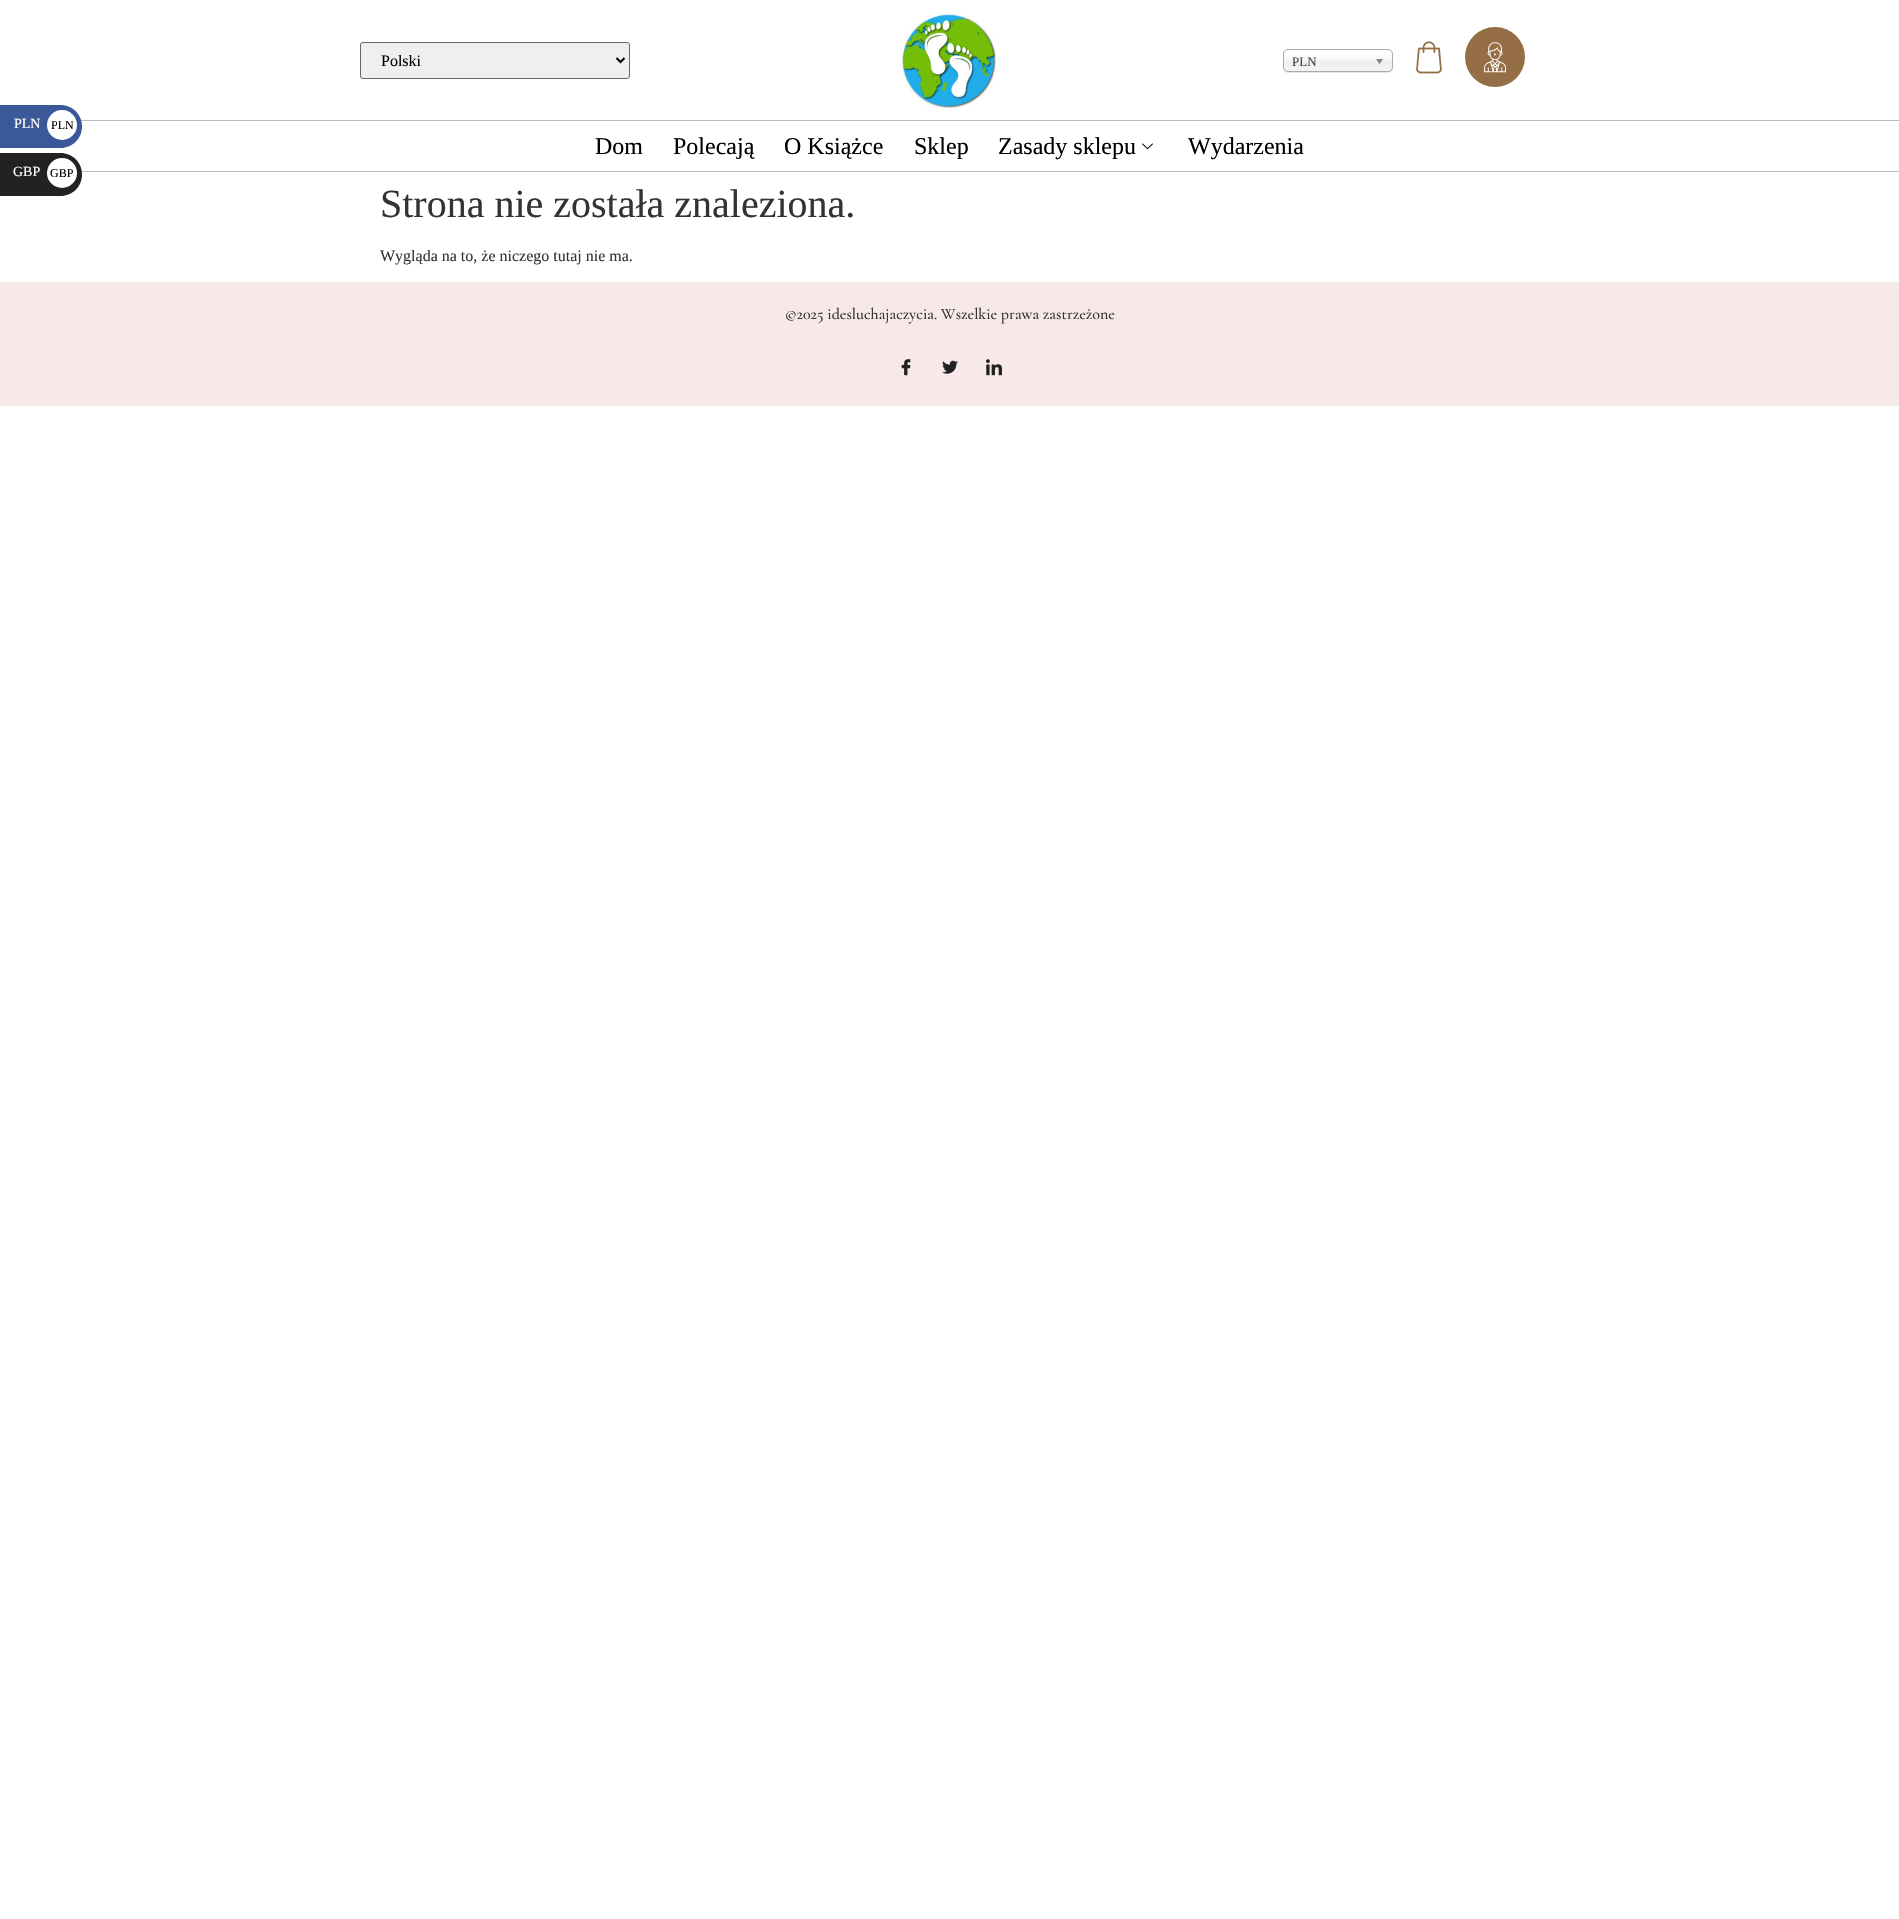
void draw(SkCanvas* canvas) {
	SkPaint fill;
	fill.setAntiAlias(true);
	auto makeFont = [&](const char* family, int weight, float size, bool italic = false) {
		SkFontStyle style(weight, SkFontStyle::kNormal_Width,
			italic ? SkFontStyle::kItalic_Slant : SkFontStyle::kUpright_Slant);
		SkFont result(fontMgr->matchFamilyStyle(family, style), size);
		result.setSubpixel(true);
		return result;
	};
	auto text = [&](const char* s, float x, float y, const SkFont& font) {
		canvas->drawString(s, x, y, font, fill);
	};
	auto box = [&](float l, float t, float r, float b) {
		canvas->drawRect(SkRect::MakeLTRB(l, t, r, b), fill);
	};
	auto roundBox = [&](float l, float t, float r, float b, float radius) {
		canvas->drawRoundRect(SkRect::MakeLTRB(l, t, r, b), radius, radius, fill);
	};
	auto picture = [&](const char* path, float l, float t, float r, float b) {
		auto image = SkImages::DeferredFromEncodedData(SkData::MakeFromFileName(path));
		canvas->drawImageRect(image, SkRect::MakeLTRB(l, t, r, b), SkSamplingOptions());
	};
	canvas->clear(0xFFFFFFFF);
	fill.setColor(0xFFBDBDBD);
	box(81, 120, 1899, 121);
	fill.setColor(0xFF3B5998);
	canvas->drawPath(SkPathBuilder().moveTo(-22, 105).lineTo(60.5f, 105).cubicTo(72.5f, 105, 82, 114.5f, 82, 126.5f).cubicTo(82, 138.5f, 72.5f, 148, 60.5f, 148).lineTo(-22, 148).close().detach(), fill);
	fill.setColor(0xFFFFFFFF);
	canvas->drawCircle(62, 125, 15, fill);
	fill.setColor(0xFFBDBDBD);
	box(81, 171, 1899, 172);
	fill.setColor(0xFF222222);
	canvas->drawPath(SkPathBuilder().moveTo(-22, 153).lineTo(60.5f, 153).cubicTo(72.5f, 153, 82, 162.5f, 82, 174.5f).cubicTo(82, 186.5f, 72.5f, 196, 60.5f, 196).lineTo(-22, 196).close().detach(), fill);
	fill.setColor(0xFFFFFFFF);
	canvas->drawCircle(62, 173, 15, fill);
	fill.setColor(0xFFEFEFEF);
	canvas->drawRoundRect(SkRect::MakeLTRB(360.5f, 42.5f, 629.5f, 78.5f), 2.5f, 2.5f, fill);
	fill.setStyle(SkPaint::kStroke_Style);
	fill.setStrokeWidth(1);
	fill.setColor(0xFF666666);
	canvas->drawRoundRect(SkRect::MakeLTRB(360.5f, 42.5f, 629.5f, 78.5f), 2.5f, 2.5f, fill);
	fill.setStrokeWidth(2);
	fill.setColor(0xFF000000);
	canvas->drawPath(SkPathBuilder().moveTo(616.5f, 58).lineTo(620.5f, 62).lineTo(624.5f, 58).detach(), fill);
	picture("image0.png", 900, 11, 996, 109);
	fill.setStyle(SkPaint::kFill_Style);
	fill.setColor(0x1A000000);
	fill.setMaskFilter(SkMaskFilter::MakeBlur(kNormal_SkBlurStyle, 0.5f));
	canvas->drawRoundRect(SkRect::MakeLTRB(1283, 50, 1393, 73), 5, 5, fill);
	fill.setMaskFilter(nullptr);
	{
		const SkColor colors[] = {0xFFFFFFFF, 0xFFF6F6F6, 0xFFEEEEEE, 0xFFF4F4F4};
		const float stops[] = {0.2f, 0.5f, 0.52f, 1};
		const SkPoint ends[] = {{1338, 50}, {1338, 71}};
		fill.setShader(SkGradientShader::MakeLinear(ends, colors, stops, 4, SkTileMode::kClamp));
		fill.setAlpha(255);
	}
	roundBox(1284, 50, 1392, 71, 4);
	fill.setStyle(SkPaint::kStroke_Style);
	fill.setStrokeWidth(1);
	fill.setShader(nullptr);
	fill.setColor(0xFFAAAAAA);
	canvas->drawRoundRect(SkRect::MakeLTRB(1283.5f, 49.5f, 1392.5f, 71.5f), 4.5f, 4.5f, fill);
	picture("image1.png", 1376, 59, 1383, 65);
	picture("image2.png", 1416, 41, 1442, 74);
	fill.setStyle(SkPaint::kFill_Style);
	fill.setColor(0xFF956E46);
	canvas->drawCircle(1495, 57, 30, fill);
	picture("image3.png", 1484, 42, 1506, 73);
	picture("image4.png", 1142, 143, 1153, 150);
	fill.setColor(0xFFF7E9E9);
	box(0, 282, 1899, 406);
	picture("image5.png", 901, 359, 911, 376);
	picture("image6.png", 942, 360, 958, 374);
	picture("image7.png", 986, 359, 1002, 376);
	auto font1 = makeFont("Liberation Serif", 400, 14);
	fill.setColor(0xFFFFFFFF);
	text("PLN", 14, 128, font1);
	auto font2 = makeFont("Liberation Serif", 400, 12);
	fill.setColor(0xFF000000);
	text("PLN", 51, 129, font2);
	fill.setColor(0xFFFFFFFF);
	text("GBP", 13, 176, font1);
	fill.setColor(0xFF000000);
	text("GBP", 50, 177, font2);
	auto font3 = makeFont("Liberation Serif", 400, 16);
	text("Polski", 381, 66, font3);
	auto font4 = makeFont("Liberation Serif", 400, 13);
	fill.setColor(0xFF444444);
	text("PLN", 1292, 66, font4);
	auto font5 = makeFont("Liberation Serif", 400, 24);
	fill.setColor(0xFF000000);
	text("Dom", 595, 154, font5);
	text("Polecają", 673, 154, font5);
	text("O Książce", 784, 154, font5);
	text("Sklep", 914, 154, font5);
	text("Zasady sklepu", 998, 154, font5);
	text("Wydarzenia", 1188, 154, font5);
	auto font6 = makeFont("Liberation Serif", 400, 40);
	fill.setColor(0xFF333333);
	text("Strona nie została znaleziona.", 380, 217, font6);
	text("Wygląda na to, że niczego tutaj nie ma.", 380, 261, font3);
	auto font7 = makeFont("Cormorant Garamond", 500, 16);
	text("©2025 idesluchajaczycia. Wszelkie prawa zastrzeżone", 785, 319, font7);
}
